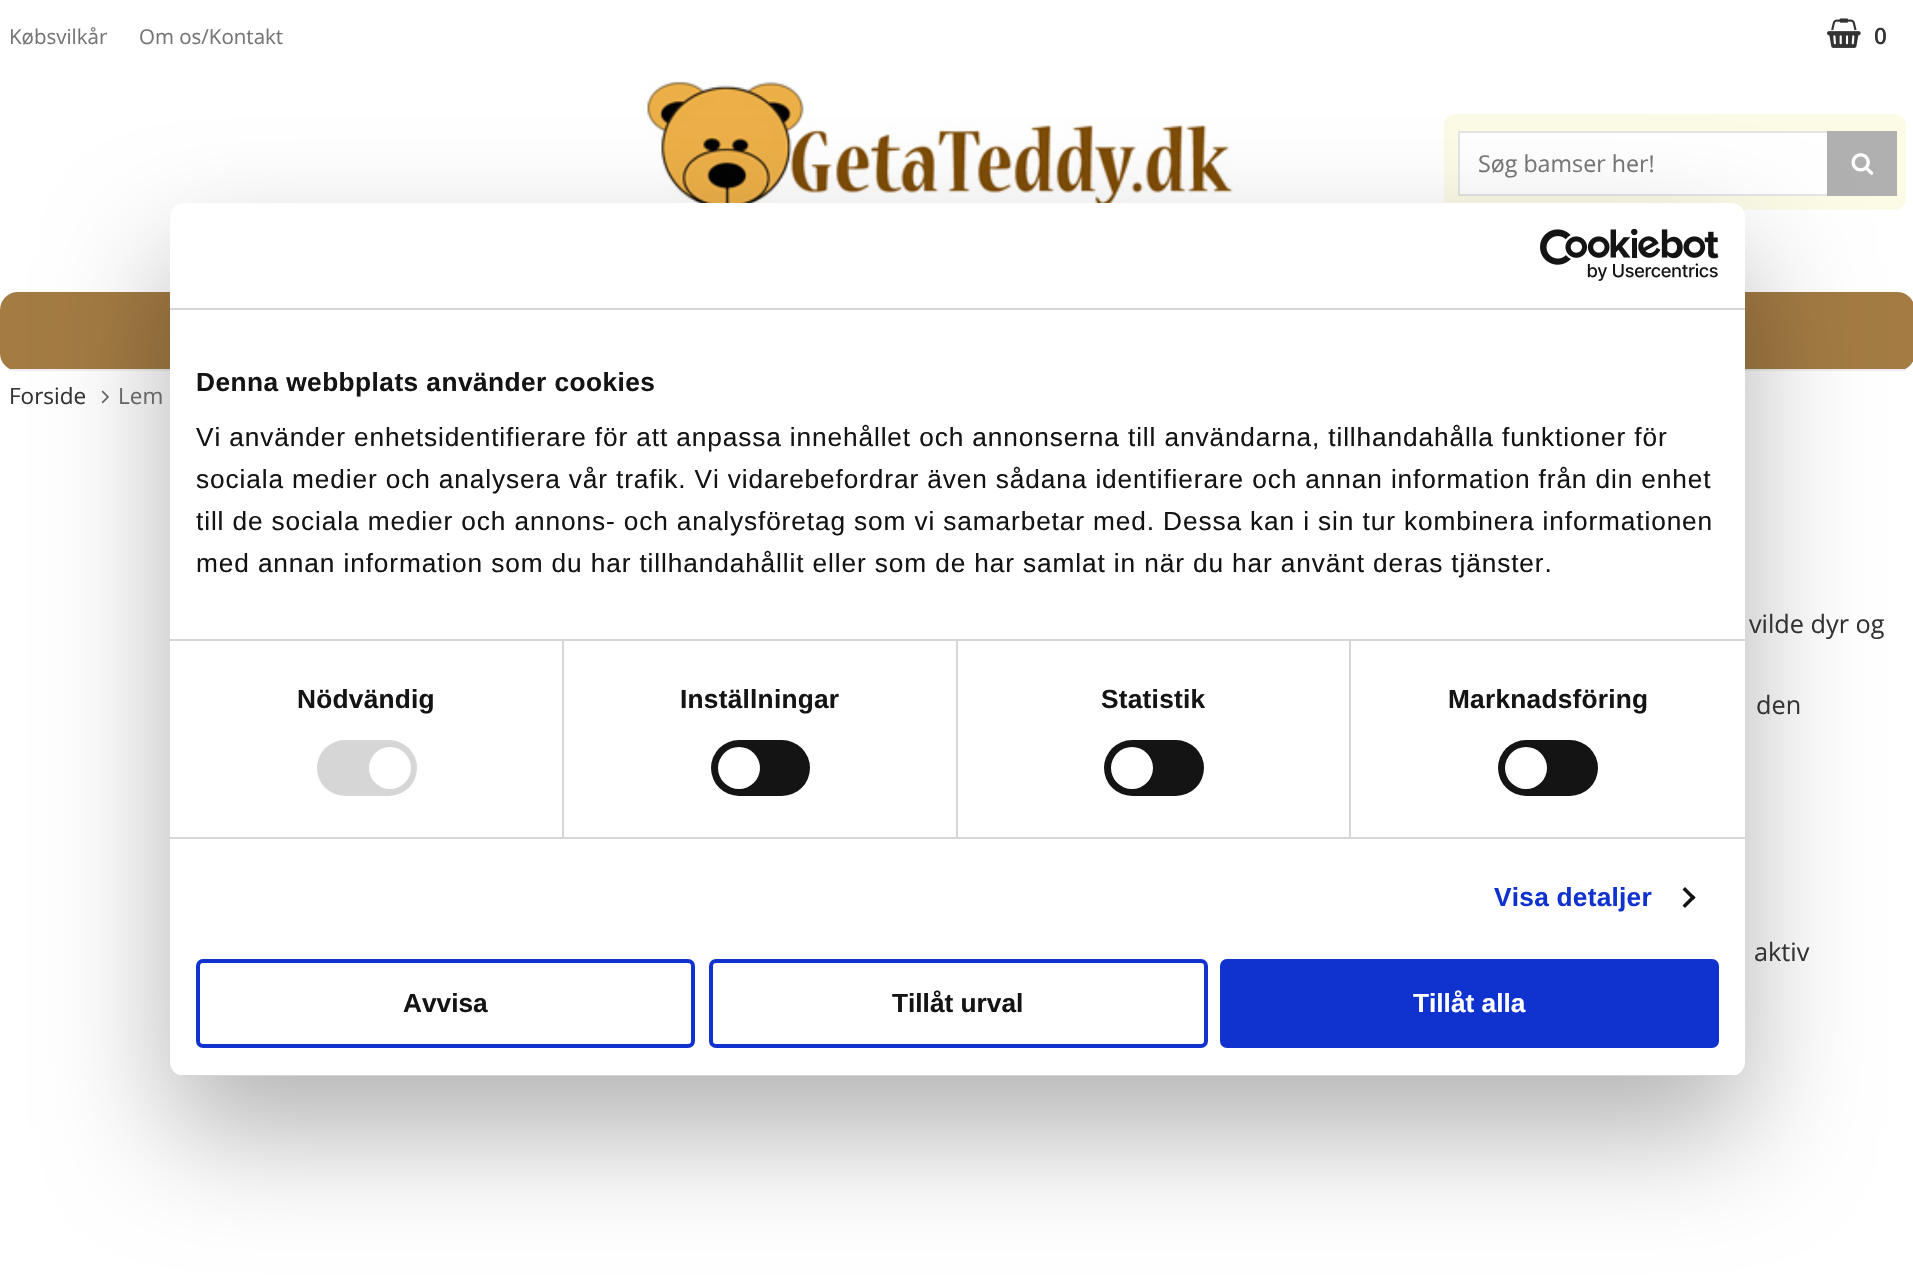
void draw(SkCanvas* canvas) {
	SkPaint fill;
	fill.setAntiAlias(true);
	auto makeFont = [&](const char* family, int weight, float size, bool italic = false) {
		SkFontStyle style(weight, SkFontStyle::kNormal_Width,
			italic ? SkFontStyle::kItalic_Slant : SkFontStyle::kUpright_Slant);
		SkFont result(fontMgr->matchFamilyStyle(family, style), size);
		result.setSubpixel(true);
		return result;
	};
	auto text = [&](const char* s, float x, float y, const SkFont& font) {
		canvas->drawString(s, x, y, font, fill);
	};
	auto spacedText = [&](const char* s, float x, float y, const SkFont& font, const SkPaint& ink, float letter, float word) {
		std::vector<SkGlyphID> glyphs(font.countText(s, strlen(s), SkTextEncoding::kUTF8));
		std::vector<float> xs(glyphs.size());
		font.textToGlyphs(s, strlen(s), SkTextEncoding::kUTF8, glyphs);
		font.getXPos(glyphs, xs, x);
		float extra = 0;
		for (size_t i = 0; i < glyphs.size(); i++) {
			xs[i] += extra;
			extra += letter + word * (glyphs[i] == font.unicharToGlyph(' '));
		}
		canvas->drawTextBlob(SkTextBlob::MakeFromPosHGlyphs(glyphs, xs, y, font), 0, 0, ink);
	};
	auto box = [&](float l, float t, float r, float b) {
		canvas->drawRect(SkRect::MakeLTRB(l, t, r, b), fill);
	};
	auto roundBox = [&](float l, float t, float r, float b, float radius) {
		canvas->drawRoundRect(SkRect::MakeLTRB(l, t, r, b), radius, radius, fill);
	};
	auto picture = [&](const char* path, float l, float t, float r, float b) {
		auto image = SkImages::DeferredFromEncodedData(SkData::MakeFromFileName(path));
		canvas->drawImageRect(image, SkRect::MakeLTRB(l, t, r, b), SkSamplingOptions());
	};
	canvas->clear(0xFFFFFFFF);
	picture("image0.png", 1827, 18, 1861, 48);
	picture("image1.png", 647, 81, 1233, 203);
	fill.setColor(0xFFFCFBE6);
	roundBox(1444, 114, 1906, 210, 12);
	fill.setColor(0xFFFFFFFF);
	box(1460, 133, 1827, 194);
	fill.setStyle(SkPaint::kStroke_Style);
	fill.setStrokeWidth(2);
	fill.setColor(0xFFE4E4E4);
	canvas->drawRect(SkRect::MakeLTRB(1459, 132, 1891, 195), fill);
	fill.setStyle(SkPaint::kFill_Style);
	fill.setColor(0xFFB0B0B0);
	box(1827, 131, 1897, 196);
	picture("image2.png", 1851, 153, 1874, 175);
	fill.setColor(0xFFA37B43);
	roundBox(0, 292, 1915, 371, 18);
	fill.setColor(0xFFEFEFEF);
	box(9, 369, 1906, 371);
	picture("image4.png", 101, 390, 109, 404);
	fill.setColor(0x4D000000);
	fill.setMaskFilter(SkMaskFilter::MakeBlur(kNormal_SkBlurStyle, 59.5f));
	canvas->drawRoundRect(SkRect::MakeLTRB(170, 259, 1745, 1132), 14, 14, fill);
	fill.setMaskFilter(nullptr);
	fill.setColor(0xFFFFFFFF);
	roundBox(170, 203, 1745, 1076, 14);
	fill.setColor(0xFFD6D6D6);
	box(170, 308, 1745, 310);
	picture("image3.png", 1540, 229, 1719, 281);
	box(170, 639, 1745, 641);
	box(170, 837, 1745, 839);
	box(562, 641, 564, 837);
	roundBox(317, 740, 417, 796, 28);
	fill.setColor(0xFFFFFFFF);
	canvas->drawCircle(390, 768, 21, fill);
	fill.setColor(0xFFD6D6D6);
	box(956, 641, 958, 837);
	fill.setColor(0xFF141414);
	roundBox(711, 740, 810, 796, 28);
	fill.setColor(0xFFFFFFFF);
	canvas->drawCircle(739, 768, 21, fill);
	fill.setColor(0xFFD6D6D6);
	box(1349, 641, 1351, 837);
	fill.setColor(0xFF141414);
	roundBox(1104, 740, 1204, 796, 28);
	fill.setColor(0xFFFFFFFF);
	canvas->drawCircle(1132, 768, 21, fill);
	fill.setColor(0xFF141414);
	roundBox(1498, 740, 1598, 796, 28);
	fill.setColor(0xFFFFFFFF);
	canvas->drawCircle(1526, 768, 21, fill);
	fill.setColor(0xFF141414);
	canvas->drawPath(SkPathBuilder().moveTo(1685, 887).lineTo(1695.5f, 897.5f).lineTo(1693, 900).lineTo(1682.5f, 889.5f).close().detach(), fill);
	canvas->drawPath(SkPathBuilder().moveTo(1693, 895).lineTo(1695.5f, 897.5f).lineTo(1685, 908).lineTo(1682.5f, 905.5f).close().detach(), fill);
	canvas->save();
	canvas->clipPath(SkPathBuilder().moveTo(184, 203).lineTo(1731, 203).cubicTo(1738.5f, 203, 1745, 209.5f, 1745, 217).lineTo(1745, 1062).cubicTo(1745, 1069.5f, 1738.5f, 1076, 1731, 1076).lineTo(184, 1076).cubicTo(176.5f, 1076, 170, 1069.5f, 170, 1062).lineTo(170, 217).cubicTo(170, 209.5f, 176.5f, 203, 184, 203).close().detach(), true);
	fill.setColor(0xFFD6D6D6);
	box(179, 1075, 1736, 1076);
	canvas->restore();
	fill.setStyle(SkPaint::kStroke_Style);
	fill.setStrokeWidth(4);
	fill.setColor(0xFF1032CF);
	canvas->drawRoundRect(SkRect::MakeLTRB(198, 961, 693, 1046), 5, 5, fill);
	canvas->drawRoundRect(SkRect::MakeLTRB(711, 961, 1206, 1046), 5, 5, fill);
	fill.setStyle(SkPaint::kFill_Style);
	canvas->drawRoundRect(SkRect::MakeLTRB(1222, 961, 1717, 1046), 5, 5, fill);
	fill.setStyle(SkPaint::kStroke_Style);
	canvas->drawRoundRect(SkRect::MakeLTRB(1222, 961, 1717, 1046), 5, 5, fill);
	auto font1 = makeFont("Open Sans", 400, 20.5f);
	fill.setStyle(SkPaint::kFill_Style);
	fill.setColor(0xFF757575);
	text("Købsvilkår", 9, 44, font1);
	text("Om os/Kontakt", 139, 44, font1);
	auto font2 = makeFont("Open Sans", 600, 22.5f);
	fill.setColor(0xFF333333);
	text("0", 1874, 44, font2);
	auto font3 = makeFont("Open Sans", 400, 23.25f);
	fill.setColor(0xFF757575);
	text("Søg bamser her!", 1478, 172, font3);
	auto font4 = makeFont("Liberation Sans", 700, 26.25f);
	fill.setColor(0xFF141414);
	spacedText("Denna webbplats använder cookies", 196, 391, font4, fill, 0.45f, 0);
	auto font5 = makeFont("Liberation Sans", 400, 26.25f);
	spacedText("Vi använder enhetsidentifierare för att anpassa innehållet och annonserna till användarna, tillhandahålla funktioner för", 196, 446, font5, fill, 0.88f, 0);
	spacedText("sociala medier och analysera vår trafik. Vi vidarebefordrar även sådana identifierare och annan information från din enhet", 196, 488, font5, fill, 0.88f, 0);
	spacedText("till de sociala medier och annons- och analysföretag som vi samarbetar med. Dessa kan i sin tur kombinera informationen", 196, 530, font5, fill, 0.88f, 0);
	spacedText("med annan information som du har tillhandahållit eller som de har samlat in när du har använt deras tjänster.", 196, 572, font5, fill, 0.88f, 0);
	spacedText("Nödvändig", 297, 708, font4, fill, 0.25f, 0);
	spacedText("Inställningar", 680, 708, font4, fill, 0.25f, 0);
	spacedText("Statistik", 1101, 708, font4, fill, 0.25f, 0);
	spacedText("Marknadsföring", 1448, 708, font4, fill, 0.25f, 0);
	fill.setColor(0xFF1032CF);
	spacedText("Visa detaljer", 1494, 906, font4, fill, 0.25f, 0);
	fill.setColor(0xFF141414);
	text("Avvisa", 403, 1012, font4);
	text("Tillåt urval", 892, 1012, font4);
	fill.setColor(0xFFFFFFFF);
	text("Tillåt alla", 1413, 1012, font4);
	auto font6 = makeFont("Open Sans", 400, 22.5f);
	fill.setColor(0xFF333333);
	text("Forside", 9, 404, font6);
	fill.setColor(0xFF666666);
	text("Lem", 118, 404, font6);
	auto font7 = makeFont("Open Sans", 400, 25.25f);
	fill.setColor(0xFF333333);
	text("vilde dyr og", 1749, 633, font7);
	text("den", 1756, 714, font7);
	text("aktiv", 1754, 961, font7);
}
